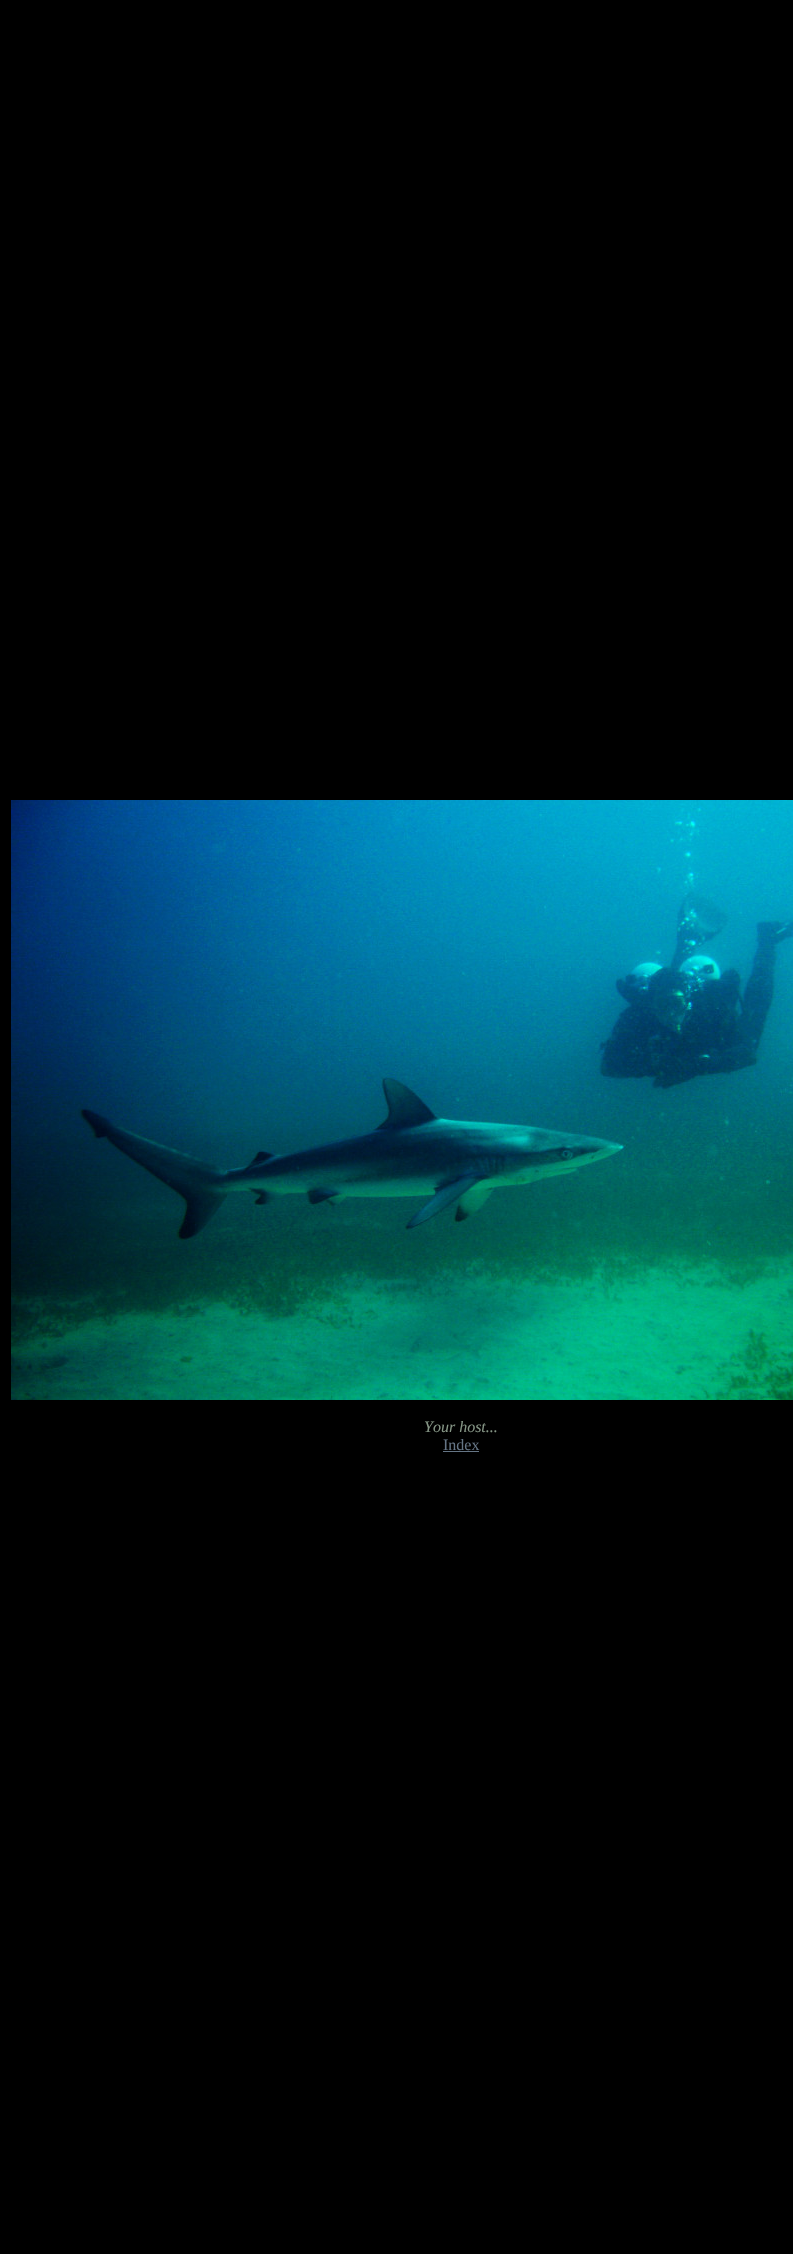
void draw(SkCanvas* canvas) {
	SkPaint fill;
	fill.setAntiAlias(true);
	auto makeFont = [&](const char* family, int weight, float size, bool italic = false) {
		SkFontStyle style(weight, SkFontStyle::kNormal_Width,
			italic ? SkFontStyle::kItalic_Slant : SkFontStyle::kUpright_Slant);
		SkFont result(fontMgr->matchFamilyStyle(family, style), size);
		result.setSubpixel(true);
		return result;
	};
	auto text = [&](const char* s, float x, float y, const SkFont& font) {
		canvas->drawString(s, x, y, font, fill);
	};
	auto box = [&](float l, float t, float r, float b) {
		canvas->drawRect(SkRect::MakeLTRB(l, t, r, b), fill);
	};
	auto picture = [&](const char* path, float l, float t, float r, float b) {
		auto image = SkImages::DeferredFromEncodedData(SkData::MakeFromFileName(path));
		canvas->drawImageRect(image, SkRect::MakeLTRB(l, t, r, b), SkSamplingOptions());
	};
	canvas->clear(0xFF000000);
	picture("image0.png", 11, 800, 793, 1400);
	fill.setColor(0xFF657585);
	box(443, 1451, 479, 1452);
	auto font1 = makeFont("Liberation Serif", 400, 16, true);
	fill.setColor(0xFF859585);
	text("Your host...", 424, 1432, font1);
	auto font2 = makeFont("Liberation Serif", 400, 16);
	fill.setColor(0xFF657585);
	text("Index", 443, 1450, font2);
}
